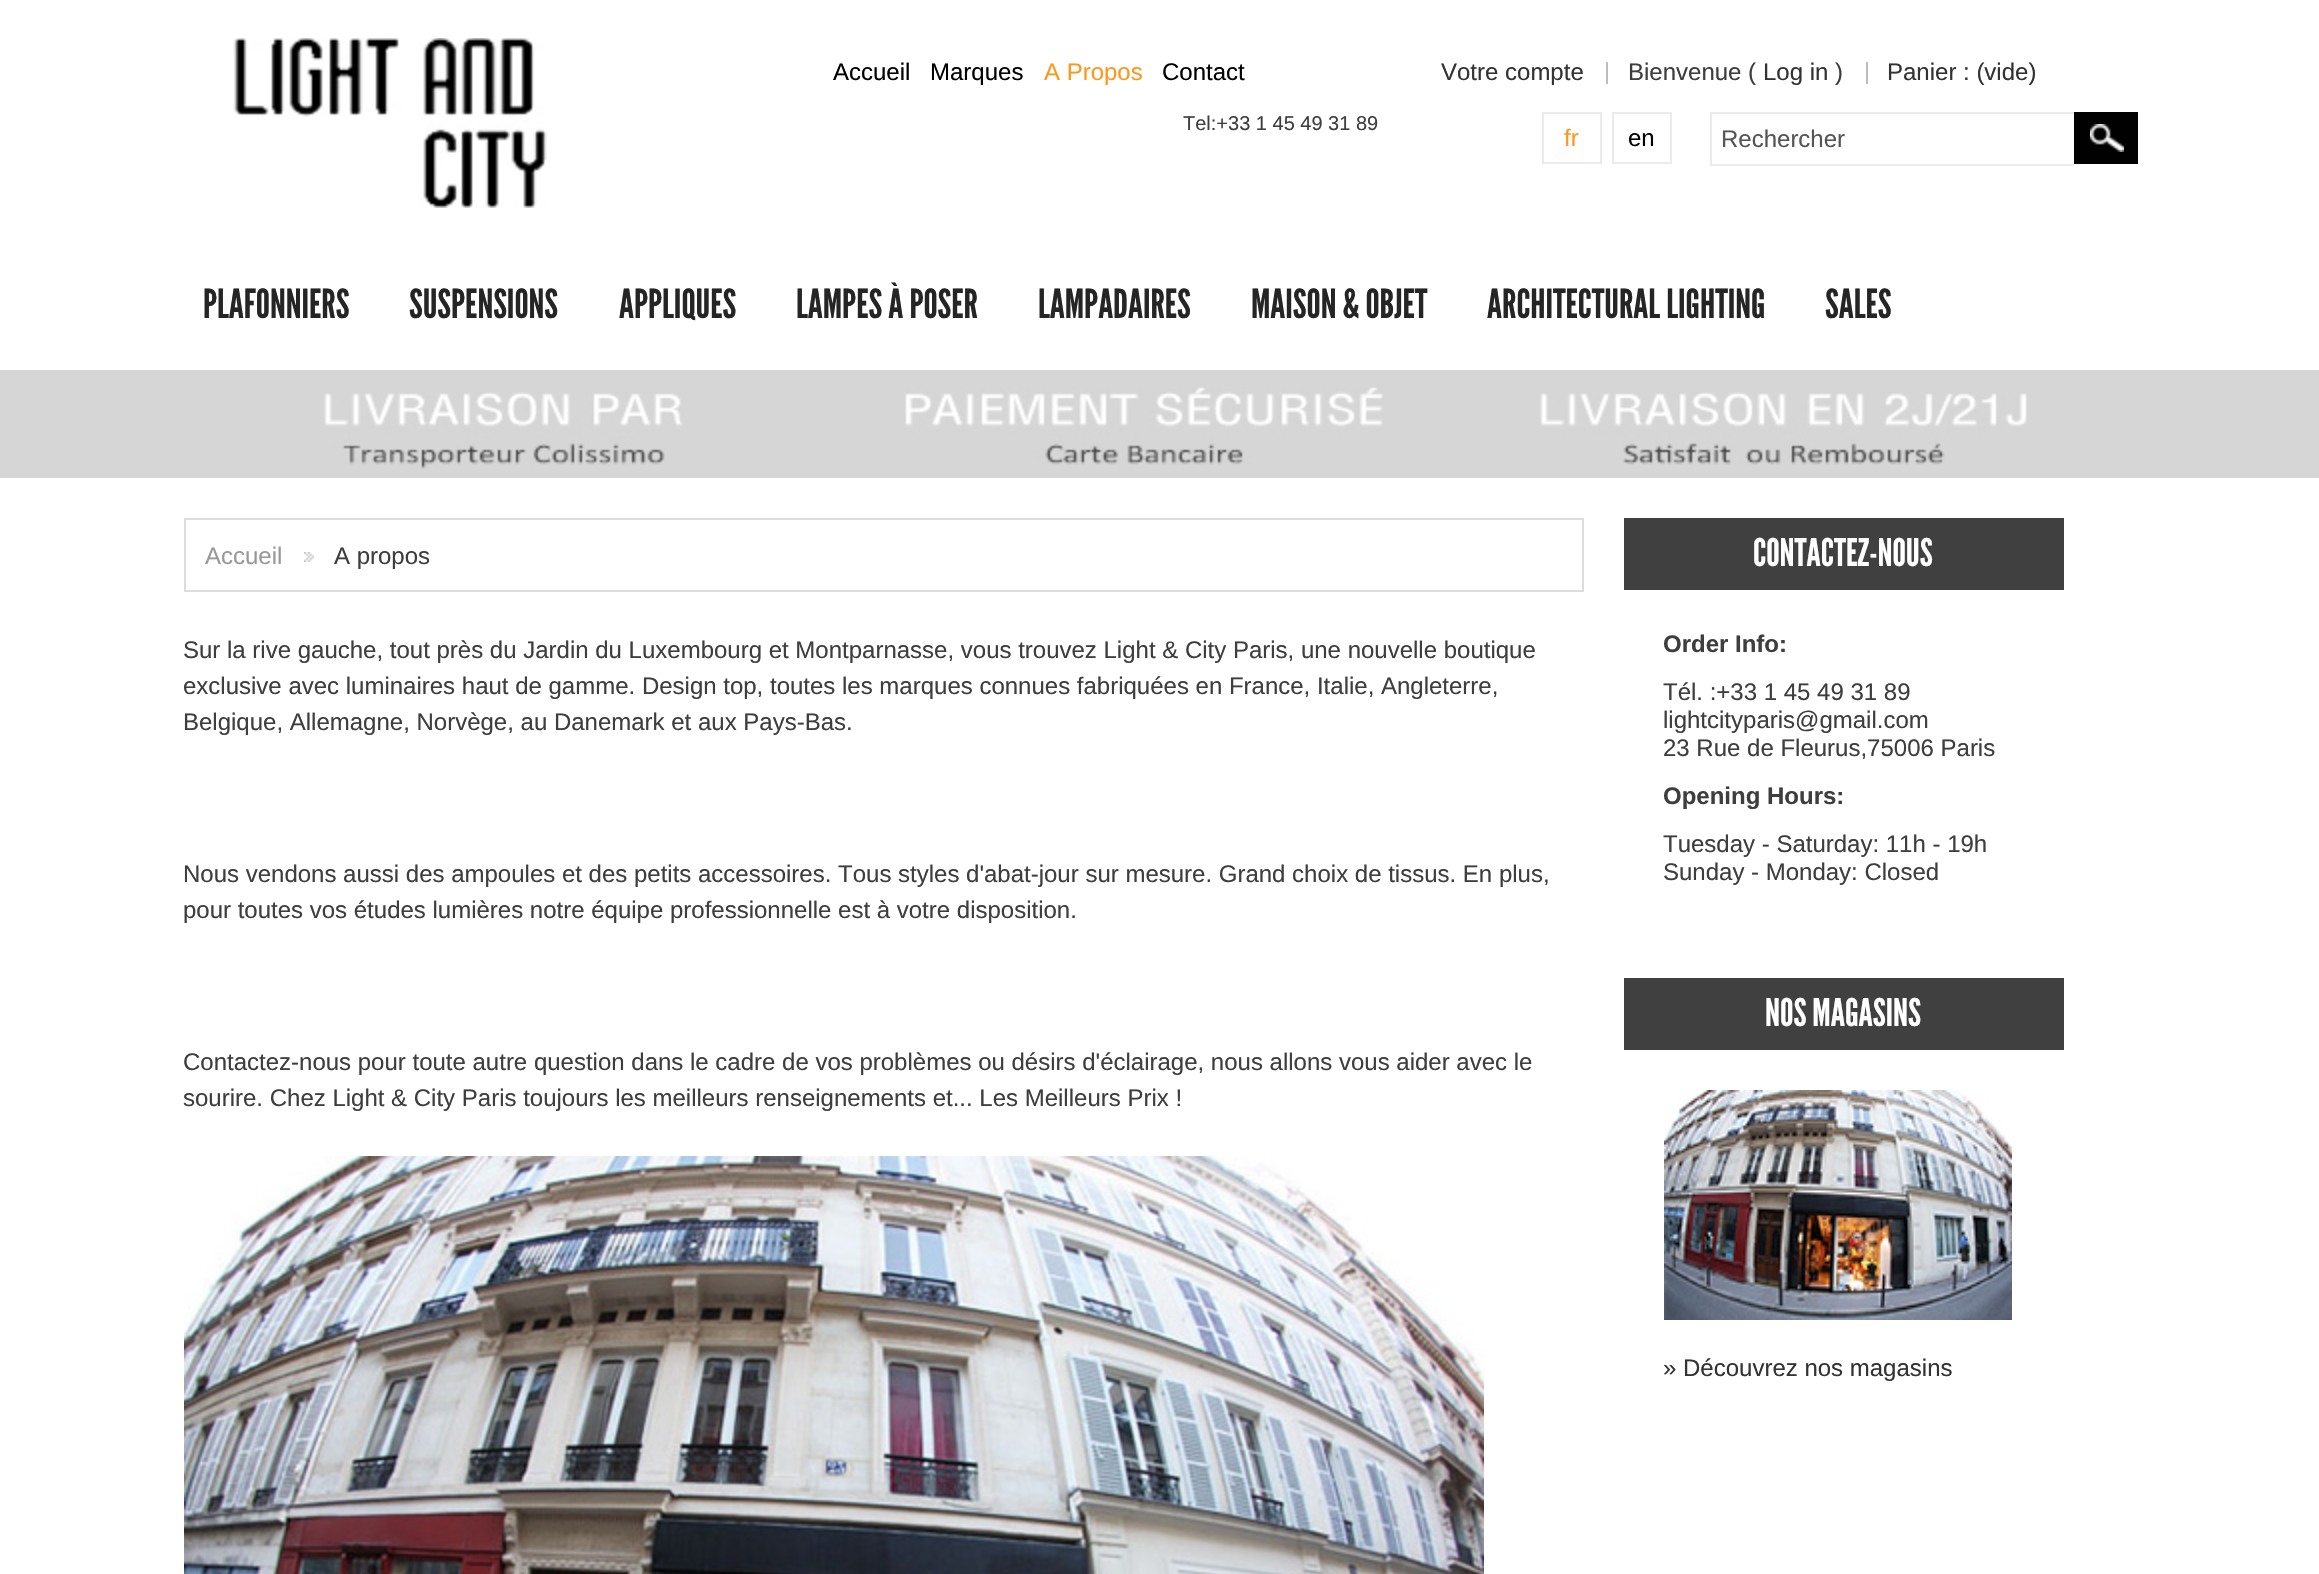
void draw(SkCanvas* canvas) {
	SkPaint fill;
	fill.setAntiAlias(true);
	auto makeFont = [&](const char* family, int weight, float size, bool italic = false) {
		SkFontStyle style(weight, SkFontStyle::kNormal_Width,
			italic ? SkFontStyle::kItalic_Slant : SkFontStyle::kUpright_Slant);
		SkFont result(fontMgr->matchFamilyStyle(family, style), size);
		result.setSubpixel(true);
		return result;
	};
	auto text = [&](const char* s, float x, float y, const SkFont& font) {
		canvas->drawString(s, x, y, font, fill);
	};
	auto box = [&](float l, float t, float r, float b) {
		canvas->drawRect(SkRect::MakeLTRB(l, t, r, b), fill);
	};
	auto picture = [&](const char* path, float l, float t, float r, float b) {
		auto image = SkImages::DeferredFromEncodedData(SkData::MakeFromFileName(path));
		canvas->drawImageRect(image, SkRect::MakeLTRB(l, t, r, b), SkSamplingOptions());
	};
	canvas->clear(0xFFFFFFFF);
	fill.setColor(0xFFD6D6D6);
	box(0, 370, 2319, 478);
	picture("image0.png", 233, 38, 547, 208);
	fill.setColor(0xFFBDBDBD);
	box(1606, 62, 1608, 84);
	box(1866, 62, 1868, 84);
	fill.setStyle(SkPaint::kStroke_Style);
	fill.setStrokeWidth(2);
	fill.setColor(0xFFEBEBEB);
	canvas->drawRect(SkRect::MakeLTRB(1543, 113, 1601, 163), fill);
	canvas->drawRect(SkRect::MakeLTRB(1613, 113, 1671, 163), fill);
	fill.setStyle(SkPaint::kFill_Style);
	box(1710, 112, 2074, 114);
	box(1710, 164, 2074, 166);
	box(1710, 112, 1712, 166);
	fill.setColor(0xFF010101);
	box(2074, 112, 2138, 164);
	picture("image1.png", 2090, 124, 2124, 152);
	picture("image2.png", 324, 392, 683, 469);
	picture("image3.png", 905, 387, 1383, 465);
	picture("image4.png", 1540, 392, 2027, 465);
	fill.setStyle(SkPaint::kStroke_Style);
	fill.setColor(0xFFDEDCDC);
	canvas->drawRect(SkRect::MakeLTRB(185, 519, 1583, 591), fill);
	picture("image5.png", 304, 552, 314, 562);
	picture("image6.png", 184, 1156, 1484, 1574);
	fill.setStyle(SkPaint::kFill_Style);
	fill.setColor(0xFF404040);
	box(1624, 518, 2064, 590);
	box(1624, 978, 2064, 1050);
	picture("image7.png", 1664, 1090, 2012, 1320);
	auto font1 = makeFont("Liberation Sans", 400, 24);
	fill.setColor(0xFF010101);
	text("Accueil", 833, 80, font1);
	text("Marques", 930, 80, font1);
	fill.setColor(0xFFFE971C);
	text("A Propos", 1044, 80, font1);
	fill.setColor(0xFF010101);
	text("Contact", 1162, 80, font1);
	auto font2 = makeFont("Liberation Sans", 400, 20);
	fill.setColor(0xFF3E3E3E);
	text("Tel:+33 1 45 49 31 89", 1183, 130, font2);
	fill.setColor(0xFF333333);
	text("Votre compte", 1441, 80, font1);
	fill.setColor(0xFF3E3E3E);
	text("Bienvenue (", 1628, 80, font1);
	fill.setColor(0xFF333333);
	text("Log in", 1763, 80, font1);
	fill.setColor(0xFF3E3E3E);
	text(")", 1835, 80, font1);
	fill.setColor(0xFF333333);
	text("Panier : (vide)", 1887, 80, font1);
	fill.setColor(0xFFFE971C);
	text("fr", 1564, 146, font1);
	fill.setColor(0xFF010101);
	text("en", 1628, 146, font1);
	fill.setColor(0xFF555555);
	text("Rechercher", 1721, 147, font1);
	auto font3 = makeFont("League Gothic", 400, 40);
	fill.setColor(0xFF252525);
	text("PLAFONNIERS", 203, 318, font3);
	text("SUSPENSIONS", 409, 318, font3);
	text("APPLIQUES", 619, 318, font3);
	text("LAMPES À POSER", 796, 318, font3);
	text("LAMPADAIRES", 1038, 318, font3);
	text("MAISON & OBJET", 1251, 318, font3);
	text("ARCHITECTURAL LIGHTING", 1487, 318, font3);
	text("SALES", 1825, 318, font3);
	fill.setColor(0xFF999999);
	text("Accueil", 205, 564, font1);
	fill.setColor(0xFF3E3E3E);
	text("A propos", 334, 564, font1);
	text("Sur la rive gauche, tout près du Jardin du Luxembourg et Montparnasse, vous trouvez Light & City Paris, une nouvelle boutique", 183, 658, font1);
	text("exclusive avec luminaires haut de gamme. Design top, toutes les marques connues fabriquées en France, Italie, Angleterre,", 183, 694, font1);
	text("Belgique, Allemagne, Norvège, au Danemark et aux Pays-Bas.", 183, 730, font1);
	text("Nous vendons aussi des ampoules et des petits accessoires. Tous styles d'abat-jour sur mesure. Grand choix de tissus. En plus,", 183, 882, font1);
	text("pour toutes vos études lumières notre équipe professionnelle est à votre disposition.", 183, 918, font1);
	text("Contactez-nous pour toute autre question dans le cadre de vos problèmes ou désirs d'éclairage, nous allons vous aider avec le", 183, 1070, font1);
	text("sourire. Chez Light & City Paris toujours les meilleurs renseignements et... Les Meilleurs Prix !", 183, 1106, font1);
	auto font4 = makeFont("League Gothic", 400, 38);
	fill.setColor(0xFFFFFFFF);
	text("CONTACTEZ-NOUS", 1753, 566, font4);
	auto font5 = makeFont("Liberation Sans", 700, 24);
	fill.setColor(0xFF3E3E3E);
	text("Order Info:", 1663, 652, font5);
	text("Tél. :+33 1 45 49 31 89", 1663, 700, font1);
	text("lightcityparis@gmail.com", 1663, 728, font1);
	text("23 Rue de Fleurus,75006 Paris", 1663, 756, font1);
	text("Opening Hours:", 1663, 804, font5);
	text("Tuesday - Saturday: 11h - 19h", 1663, 852, font1);
	text("Sunday - Monday: Closed", 1663, 880, font1);
	fill.setColor(0xFFFFFFFF);
	text("NOS MAGASINS", 1765, 1026, font4);
	fill.setColor(0xFF333333);
	text("» Découvrez nos magasins", 1663, 1376, font1);
}
